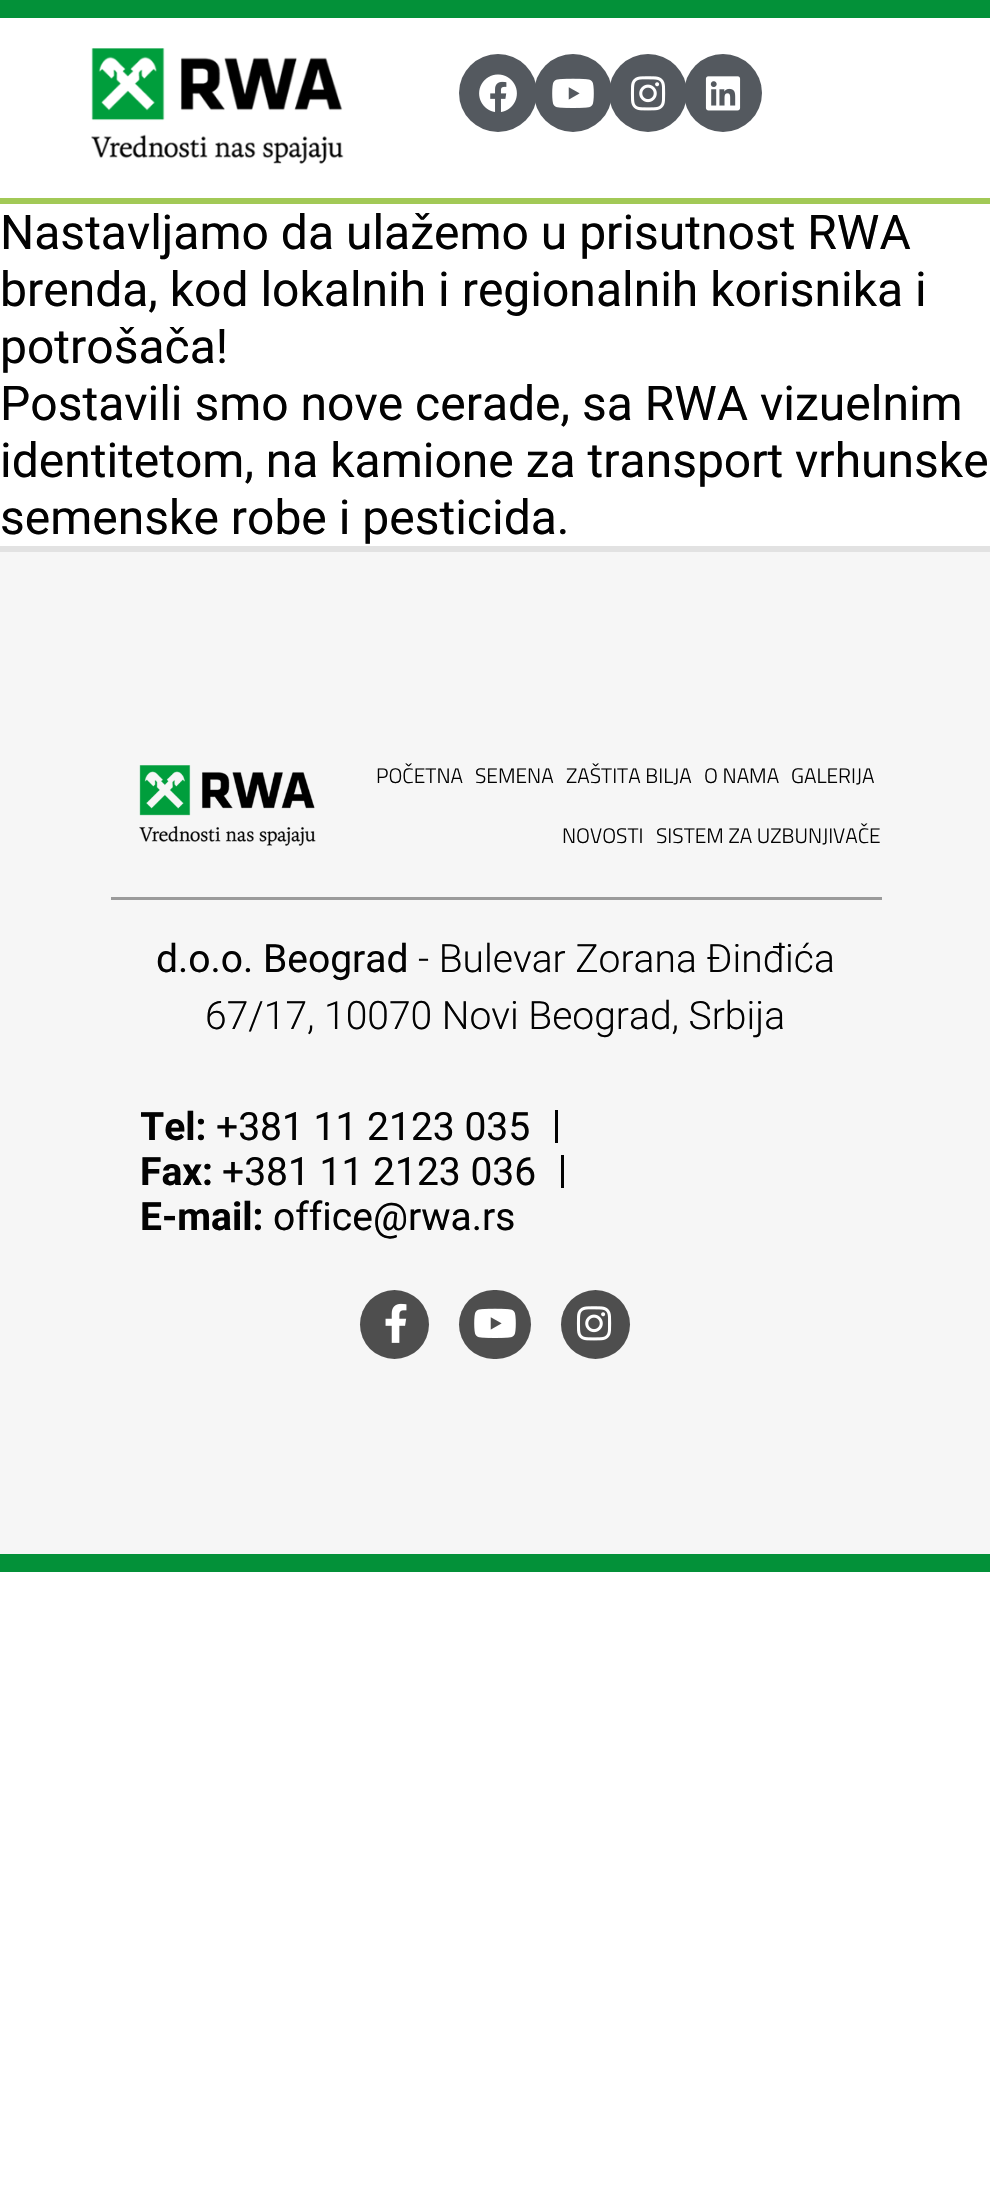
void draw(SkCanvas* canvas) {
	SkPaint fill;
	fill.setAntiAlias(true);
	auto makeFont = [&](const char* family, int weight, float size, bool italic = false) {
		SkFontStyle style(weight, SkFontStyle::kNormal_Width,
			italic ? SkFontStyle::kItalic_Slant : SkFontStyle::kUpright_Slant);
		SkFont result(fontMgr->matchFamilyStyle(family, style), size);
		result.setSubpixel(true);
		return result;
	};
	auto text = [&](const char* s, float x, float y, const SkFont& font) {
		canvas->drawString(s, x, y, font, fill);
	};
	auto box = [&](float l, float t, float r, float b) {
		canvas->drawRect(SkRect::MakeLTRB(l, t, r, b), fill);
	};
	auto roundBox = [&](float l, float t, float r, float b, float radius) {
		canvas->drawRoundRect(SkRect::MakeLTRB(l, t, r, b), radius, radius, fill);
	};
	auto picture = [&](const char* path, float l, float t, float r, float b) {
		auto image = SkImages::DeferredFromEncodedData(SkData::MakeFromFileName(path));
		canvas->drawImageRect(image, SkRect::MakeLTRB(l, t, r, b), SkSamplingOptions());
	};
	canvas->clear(0xFFFFFFFF);
	fill.setColor(0xFF039139);
	box(0, 0, 990, 18);
	fill.setColor(0xFFA2C956);
	box(0, 198, 990, 204);
	picture("image0.png", 91, 48, 344, 164);
	fill.setColor(0xFF54595F);
	canvas->drawCircle(498, 93, 39, fill);
	picture("image1.png", 479, 74, 517, 112);
	canvas->drawCircle(573, 93, 39, fill);
	picture("image2.png", 552, 78, 594, 108);
	canvas->drawCircle(648, 93, 39, fill);
	picture("image3.png", 630, 76, 666, 111);
	canvas->drawCircle(723, 93, 39, fill);
	picture("image4.png", 705, 76, 741, 111);
	fill.setColor(0xFFF6F6F6);
	box(0, 552, 990, 1554);
	fill.setColor(0xFFE2E2E2);
	box(0, 546, 990, 552);
	fill.setColor(0xFF039139);
	box(0, 1554, 990, 1572);
	fill.setColor(0xFF9B9B9B);
	box(111, 897, 882, 900);
	picture("image5.png", 139, 765, 316, 846);
	fill.setColor(0xFF020202);
	box(555, 1110, 558, 1143);
	box(561, 1155, 564, 1188);
	fill.setColor(0xFF4E4E4E);
	canvas->drawCircle(394.5f, 1324.5f, 34.5f, fill);
	picture("image6.png", 385, 1303, 407, 1343);
	roundBox(459, 1290, 531, 1359, 34.5f);
	picture("image7.png", 474, 1308, 516, 1338);
	canvas->drawCircle(595.5f, 1324.5f, 34.5f, fill);
	picture("image8.png", 576, 1306, 612, 1341);
	auto font1 = makeFont("Roboto", 400, 48);
	fill.setColor(0xFF020202);
	text("Nastavljamo da ulažemo u prisutnost RWA", 0, 249, font1);
	text("brenda, kod lokalnih i regionalnih korisnika i", 0, 306, font1);
	text("potrošača!", 0, 363, font1);
	text("Postavili smo nove cerade, sa RWA vizuelnim", 0, 420, font1);
	text("identitetom, na kamione za transport vrhunske", 0, 477, font1);
	text("semenske robe i pesticida.", 0, 534, font1);
	auto font2 = makeFont("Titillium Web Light", 300, 21);
	text("POČETNA", 376, 783, font2);
	text("SEMENA", 475, 783, font2);
	text("ZAŠTITA BILJA", 566, 783, font2);
	text("O NAMA", 704, 783, font2);
	text("GALERIJA", 791, 783, font2);
	text("NOVOSTI", 562, 843, font2);
	text("SISTEM ZA UZBUNJIVAČE", 656, 843, font2);
	auto font3 = makeFont("Roboto", 400, 39);
	text("d.o.o. Beograd", 156, 972, font3);
	auto font4 = makeFont("Roboto", 300, 39);
	text("- Bulevar Zorana Đinđića", 418, 972, font4);
	text("67/17, 10070 Novi Beograd, Srbija", 205, 1029, font4);
	canvas->save();
	canvas->clipRect(SkRect::MakeLTRB(141, 1104, 852, 1239));
	auto font5 = makeFont("Roboto", 700, 39);
	text("Tel:", 140, 1140, font5);
	canvas->restore();
	text("+381 11 2123 035", 216, 1140, font3);
	text("Fax:", 140, 1185, font5);
	text("+381 11 2123 036", 222, 1185, font3);
	text("E-mail:", 140, 1230, font5);
	text("office@rwa.rs", 273, 1230, font3);
}
